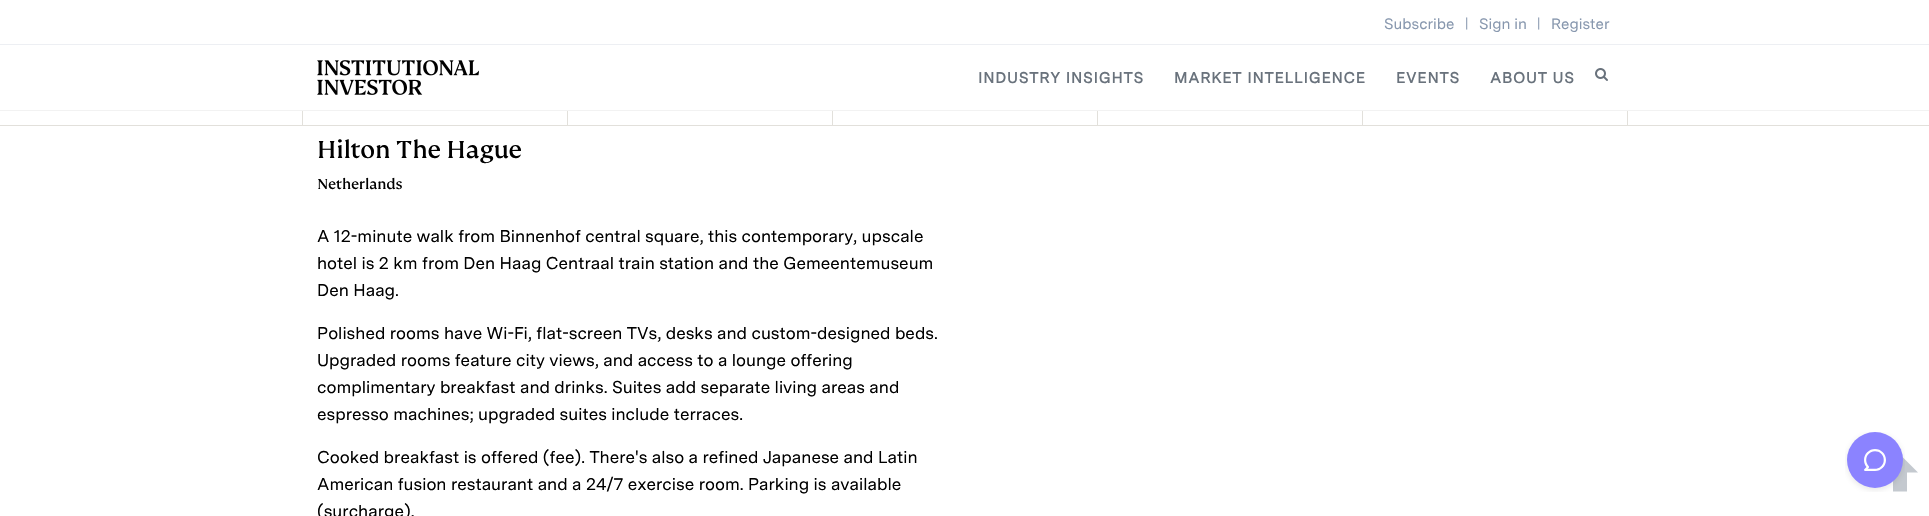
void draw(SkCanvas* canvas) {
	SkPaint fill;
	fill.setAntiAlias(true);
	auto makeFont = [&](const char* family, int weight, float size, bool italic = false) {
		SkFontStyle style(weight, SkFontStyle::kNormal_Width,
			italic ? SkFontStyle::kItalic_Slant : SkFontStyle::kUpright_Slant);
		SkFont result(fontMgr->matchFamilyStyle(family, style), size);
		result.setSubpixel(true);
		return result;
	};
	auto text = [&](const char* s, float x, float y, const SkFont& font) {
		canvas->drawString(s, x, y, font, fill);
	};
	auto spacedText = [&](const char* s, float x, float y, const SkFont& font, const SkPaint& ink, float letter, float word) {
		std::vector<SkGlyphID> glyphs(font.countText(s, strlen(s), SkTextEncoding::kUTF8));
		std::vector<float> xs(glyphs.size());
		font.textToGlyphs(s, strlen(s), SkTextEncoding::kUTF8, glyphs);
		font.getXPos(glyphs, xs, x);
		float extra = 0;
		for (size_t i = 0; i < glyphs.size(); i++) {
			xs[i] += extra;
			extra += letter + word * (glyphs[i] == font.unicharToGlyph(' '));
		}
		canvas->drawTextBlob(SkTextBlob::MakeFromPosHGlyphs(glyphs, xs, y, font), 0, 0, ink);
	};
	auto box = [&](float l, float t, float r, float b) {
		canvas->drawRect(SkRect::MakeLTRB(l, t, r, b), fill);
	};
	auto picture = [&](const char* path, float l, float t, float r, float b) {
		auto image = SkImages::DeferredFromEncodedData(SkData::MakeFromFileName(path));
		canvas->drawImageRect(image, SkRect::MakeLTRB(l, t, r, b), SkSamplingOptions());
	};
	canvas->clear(0xFFFFFFFF);
	fill.setColor(0xFFF2F2F2);
	box(0, 110, 1929, 111);
	fill.setColor(0xFFEDEFF3);
	box(0, 44, 1929, 45);
	picture("image0.png", 317, 60, 479, 95);
	picture("image1.png", 1595, 68, 1608, 81);
	fill.setColor(0xFFE2E0DB);
	box(0, 125, 1929, 126);
	box(302, 111, 303, 125);
	box(567, 111, 568, 125);
	box(832, 111, 833, 125);
	box(1097, 111, 1098, 125);
	box(1627, 111, 1628, 125);
	box(1362, 111, 1363, 125);
	fill.setColor(0xFFC4C9CF);
	canvas->drawPath(SkPathBuilder().moveTo(1900, 454.5f).lineTo(1882, 472.5f).lineTo(1893, 472.5f).lineTo(1893, 491.5f).lineTo(1907, 491.5f).lineTo(1907, 472.5f).lineTo(1918, 472.5f).close().detach(), fill);
	picture("image2.png", 1845, 432, 1905, 492);
	auto font1 = makeFont("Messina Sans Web", 400, 15);
	fill.setColor(0xFF8797AE);
	text("Subscribe", 1384, 29, font1);
	auto font2 = makeFont("Messina Sans Web", 400, 13);
	text("|", 1465, 28, font2);
	text("Sign in", 1479, 29, font1);
	text("|", 1537, 28, font2);
	text("Register", 1551, 29, font1);
	auto font3 = makeFont("Messina Sans Web", 700, 15);
	fill.setColor(0xFF69727C);
	spacedText("INDUSTRY INSIGHTS", 978, 83, font3, fill, 1, 0);
	spacedText("MARKET INTELLIGENCE", 1174, 83, font3, fill, 1, 0);
	spacedText("EVENTS", 1396, 83, font3, fill, 1, 0);
	spacedText("ABOUT US", 1490, 83, font3, fill, 1, 0);
	auto font4 = makeFont("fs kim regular", 400, 27);
	fill.setColor(0xFF000000);
	text("Hilton The Hague", 317, 158, font4);
	auto font5 = makeFont("fs kim regular", 400, 16);
	text("Netherlands", 317, 189, font5);
	auto font6 = makeFont("Messina Sans Web", 400, 17);
	text("A 12-minute walk from Binnenhof central square, this contemporary, upscale", 317, 242, font6);
	text("hotel is 2 km from Den Haag Centraal train station and the Gemeentemuseum", 317, 269, font6);
	text("Den Haag.", 317, 296, font6);
	text("Polished rooms have Wi-Fi, flat-screen TVs, desks and custom-designed beds.", 317, 339, font6);
	text("Upgraded rooms feature city views, and access to a lounge offering", 317, 366, font6);
	text("complimentary breakfast and drinks. Suites add separate living areas and", 317, 393, font6);
	text("espresso machines; upgraded suites include terraces.", 317, 420, font6);
	text("Cooked breakfast is offered (fee). There's also a refined Japanese and Latin", 317, 463, font6);
	text("American fusion restaurant and a 24/7 exercise room. Parking is available", 317, 490, font6);
	text("(surcharge).", 317, 517, font6);
}
